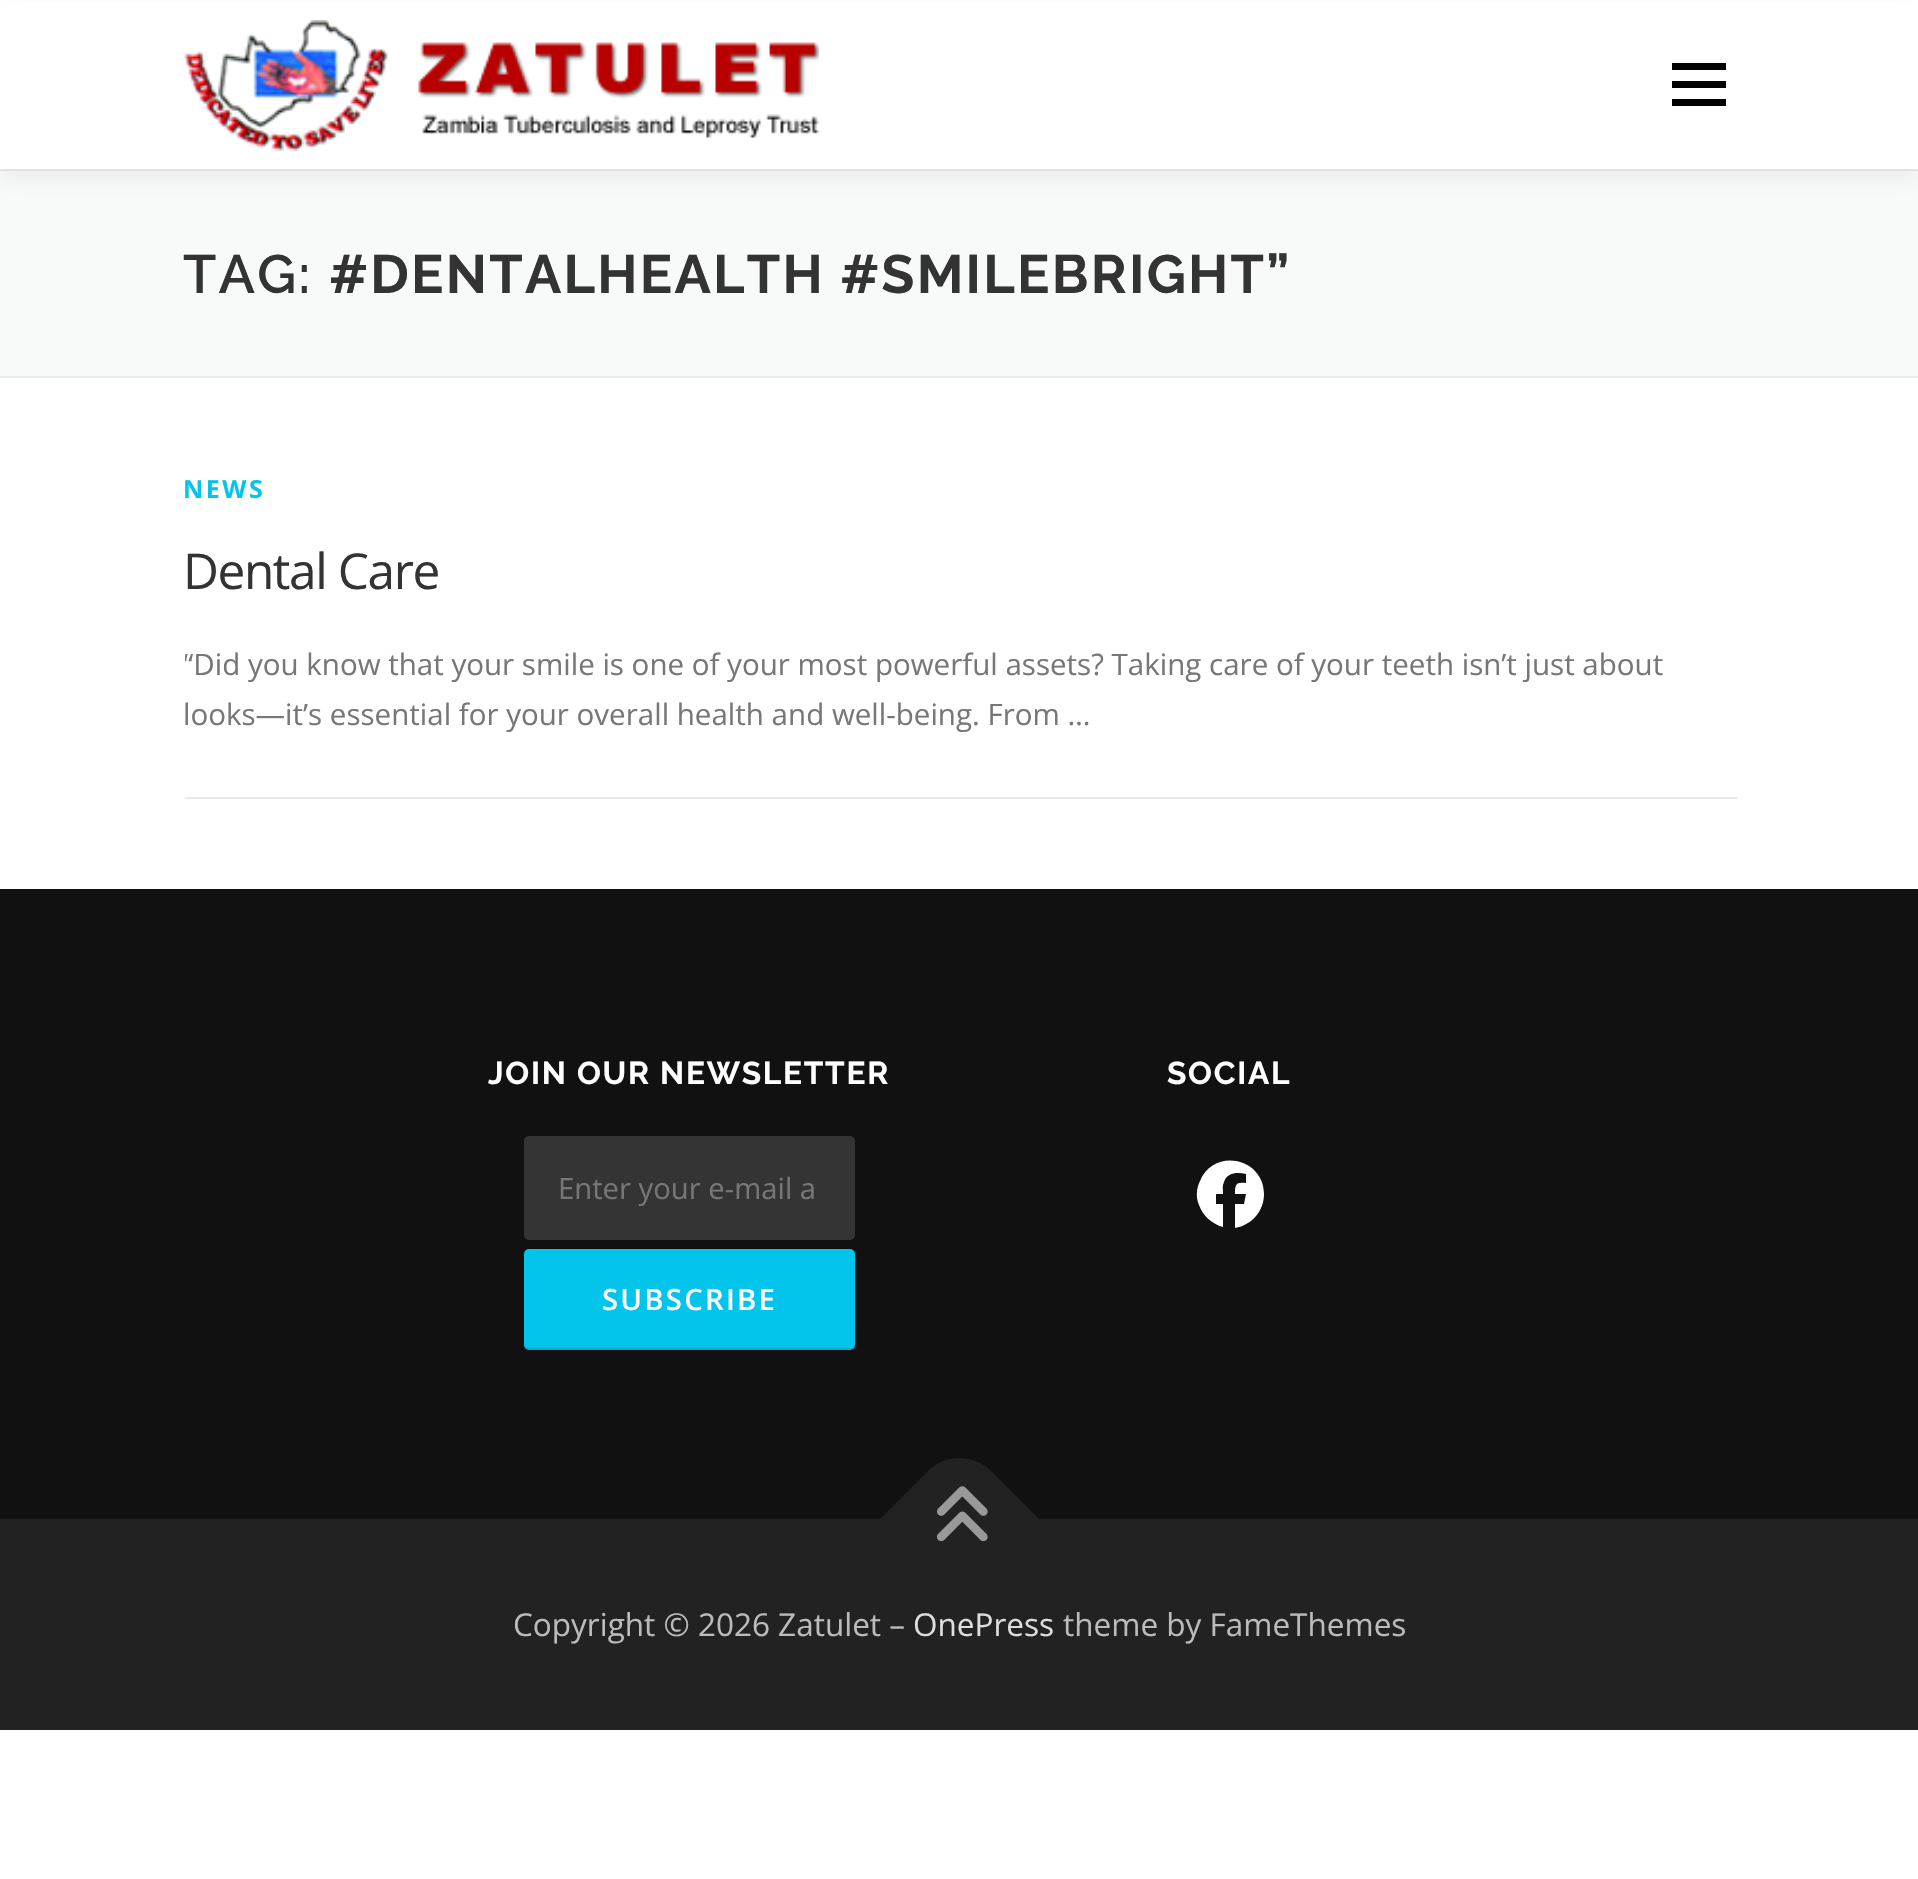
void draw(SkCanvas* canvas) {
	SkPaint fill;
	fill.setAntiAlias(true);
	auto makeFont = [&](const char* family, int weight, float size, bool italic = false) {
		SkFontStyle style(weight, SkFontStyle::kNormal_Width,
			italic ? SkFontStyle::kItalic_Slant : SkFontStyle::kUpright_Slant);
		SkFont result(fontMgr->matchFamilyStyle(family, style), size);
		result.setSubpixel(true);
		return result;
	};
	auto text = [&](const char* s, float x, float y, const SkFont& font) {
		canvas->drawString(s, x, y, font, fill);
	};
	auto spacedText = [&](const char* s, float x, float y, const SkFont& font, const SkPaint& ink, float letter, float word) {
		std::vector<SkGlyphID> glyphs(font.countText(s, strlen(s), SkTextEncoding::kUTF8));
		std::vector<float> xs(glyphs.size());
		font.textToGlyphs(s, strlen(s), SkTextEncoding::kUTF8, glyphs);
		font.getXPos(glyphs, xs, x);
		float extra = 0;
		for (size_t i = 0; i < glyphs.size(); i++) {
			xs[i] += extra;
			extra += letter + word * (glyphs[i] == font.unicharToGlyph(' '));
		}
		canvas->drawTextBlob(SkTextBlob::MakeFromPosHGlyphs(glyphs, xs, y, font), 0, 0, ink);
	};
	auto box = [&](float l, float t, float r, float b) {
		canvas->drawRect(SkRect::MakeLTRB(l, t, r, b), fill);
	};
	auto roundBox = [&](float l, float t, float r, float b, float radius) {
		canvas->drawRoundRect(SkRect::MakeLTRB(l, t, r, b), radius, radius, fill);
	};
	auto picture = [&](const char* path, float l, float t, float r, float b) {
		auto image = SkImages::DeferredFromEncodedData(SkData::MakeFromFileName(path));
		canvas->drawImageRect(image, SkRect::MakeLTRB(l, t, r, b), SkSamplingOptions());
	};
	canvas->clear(0xFFFFFFFF);
	fill.setColor(0xFFF8F9F9);
	box(0, 171, 1918, 376);
	fill.setColor(0xFFE9E9E9);
	box(0, 169, 1918, 171);
	fill.setColor(0x0F323232);
	fill.setMaskFilter(SkMaskFilter::MakeBlur(kNormal_SkBlurStyle, 11));
	canvas->drawRect(SkRect::MakeLTRB(0, 11, 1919, 180), fill);
	fill.setMaskFilter(nullptr);
	fill.setColor(0xFFFFFFFF);
	box(0, 2, 1918, 169);
	picture("image0.png", 184, 20, 819, 151);
	fill.setColor(0xFF000000);
	box(1672, 81, 1726, 88);
	box(1672, 63, 1726, 70);
	box(1672, 99, 1726, 106);
	fill.setColor(0xFFE9E9E9);
	box(0, 376, 1918, 378);
	box(185, 797, 1737, 799);
	fill.setColor(0xFF111111);
	box(0, 889, 1918, 1519);
	fill.setColor(0xFF343434);
	roundBox(524, 1136, 855, 1240, 5);
	fill.setColor(0xFF03C4EB);
	roundBox(524, 1249, 855, 1350, 5);
	fill.setColor(0x1A000000);
	canvas->drawPath(SkPathBuilder().moveTo(524, 1343).lineTo(524, 1345).cubicTo(524, 1348, 526, 1350, 529, 1350).lineTo(850, 1350).cubicTo(853, 1350, 855, 1348, 855, 1345).lineTo(855, 1343).cubicTo(855, 1346, 853, 1348, 850, 1348).lineTo(529, 1348).cubicTo(526, 1348, 524, 1346, 524, 1343).close().detach(), fill);
	fill.setColor(0xFFFFFFFF);
	canvas->drawPath(SkPathBuilder().moveTo(1264, 1194).cubicTo(1264, 1158, 1214, 1147, 1200, 1181).cubicTo(1196, 1189, 1196, 1198, 1199, 1205).cubicTo(1203, 1216, 1212, 1224, 1223, 1227).lineTo(1223, 1204).lineTo(1216, 1204).lineTo(1216, 1194).lineTo(1223, 1194).cubicTo(1223, 1190, 1222, 1186, 1224, 1182).cubicTo(1227, 1172, 1238, 1172, 1246, 1174).lineTo(1246, 1183).cubicTo(1236, 1182, 1235, 1184, 1235, 1194).lineTo(1246, 1194).lineTo(1244, 1204).lineTo(1235, 1204).lineTo(1235, 1228).cubicTo(1252, 1225, 1264, 1211, 1264, 1194).close().detach(), fill);
	fill.setColor(0xFF222222);
	box(0, 1519, 1918, 1730);
	canvas->drawPath(SkPathBuilder().moveTo(880, 1519).lineTo(928, 1471).cubicTo(945, 1454, 974, 1454, 991, 1471).lineTo(1039, 1519).lineTo(960, 1598).close().detach(), fill);
	picture("image1.png", 937, 1486, 988, 1542);
	auto font1 = makeFont("Raleway", 600, 54);
	fill.setColor(0xFF333333);
	spacedText("TAG:", 183, 293, font1, fill, 2.25f, 0);
	auto font2 = makeFont("Raleway", 700, 54);
	spacedText("#DENTALHEALTH #SMILEBRIGHT”", 329, 293, font2, fill, 2.25f, 0);
	auto font3 = makeFont("Open Sans", 700, 25);
	fill.setColor(0xFF03C4EB);
	spacedText("NEWS", 183, 498, font3, fill, 2.5f, 0);
	auto font4 = makeFont("Open Sans", 400, 49.5f);
	fill.setColor(0xFF333333);
	spacedText("Dental Care", 183, 589, font4, fill, -1.4f, 0);
	canvas->save();
	canvas->clipRect(SkRect::MakeLTRB(185, 468, 1737, 740));
	auto font5 = makeFont("Open Sans", 400, 29.53f);
	fill.setColor(0xFF777777);
	text("“Did you know that your smile is one of your most powerful assets? Taking care of your teeth isn’t just about", 183, 675, font5);
	canvas->restore();
	text("looks—it’s essential for your overall health and well-being. From …", 183, 725, font5);
	auto font6 = makeFont("Raleway", 700, 31.6f);
	fill.setColor(0xFFFFFFFF);
	spacedText("JOIN OUR NEWSLETTER", 488, 1084, font6, fill, 1.75f, 0);
	auto font7 = makeFont("Open Sans", 400, 29.25f);
	fill.setColor(0xFF777777);
	text("Enter your e-mail a", 558, 1199, font7);
	auto font8 = makeFont("Open Sans", 600, 29.25f);
	fill.setColor(0xFFFFFFFF);
	spacedText("SUBSCRIBE", 602, 1310, font8, fill, 2.25f, 0);
	spacedText("SOCIAL", 1167, 1084, font6, fill, 1.75f, 0);
	auto font9 = makeFont("Open Sans", 400, 31.5f);
	fill.setColor(0xFFBBBBBB);
	text("Copyright © 2026 Zatulet –", 513, 1636, font9);
	fill.setColor(0xFFDDDDDD);
	text("OnePress", 913, 1636, font9);
	fill.setColor(0xFFBBBBBB);
	text("theme by FameThemes", 1063, 1636, font9);
}
